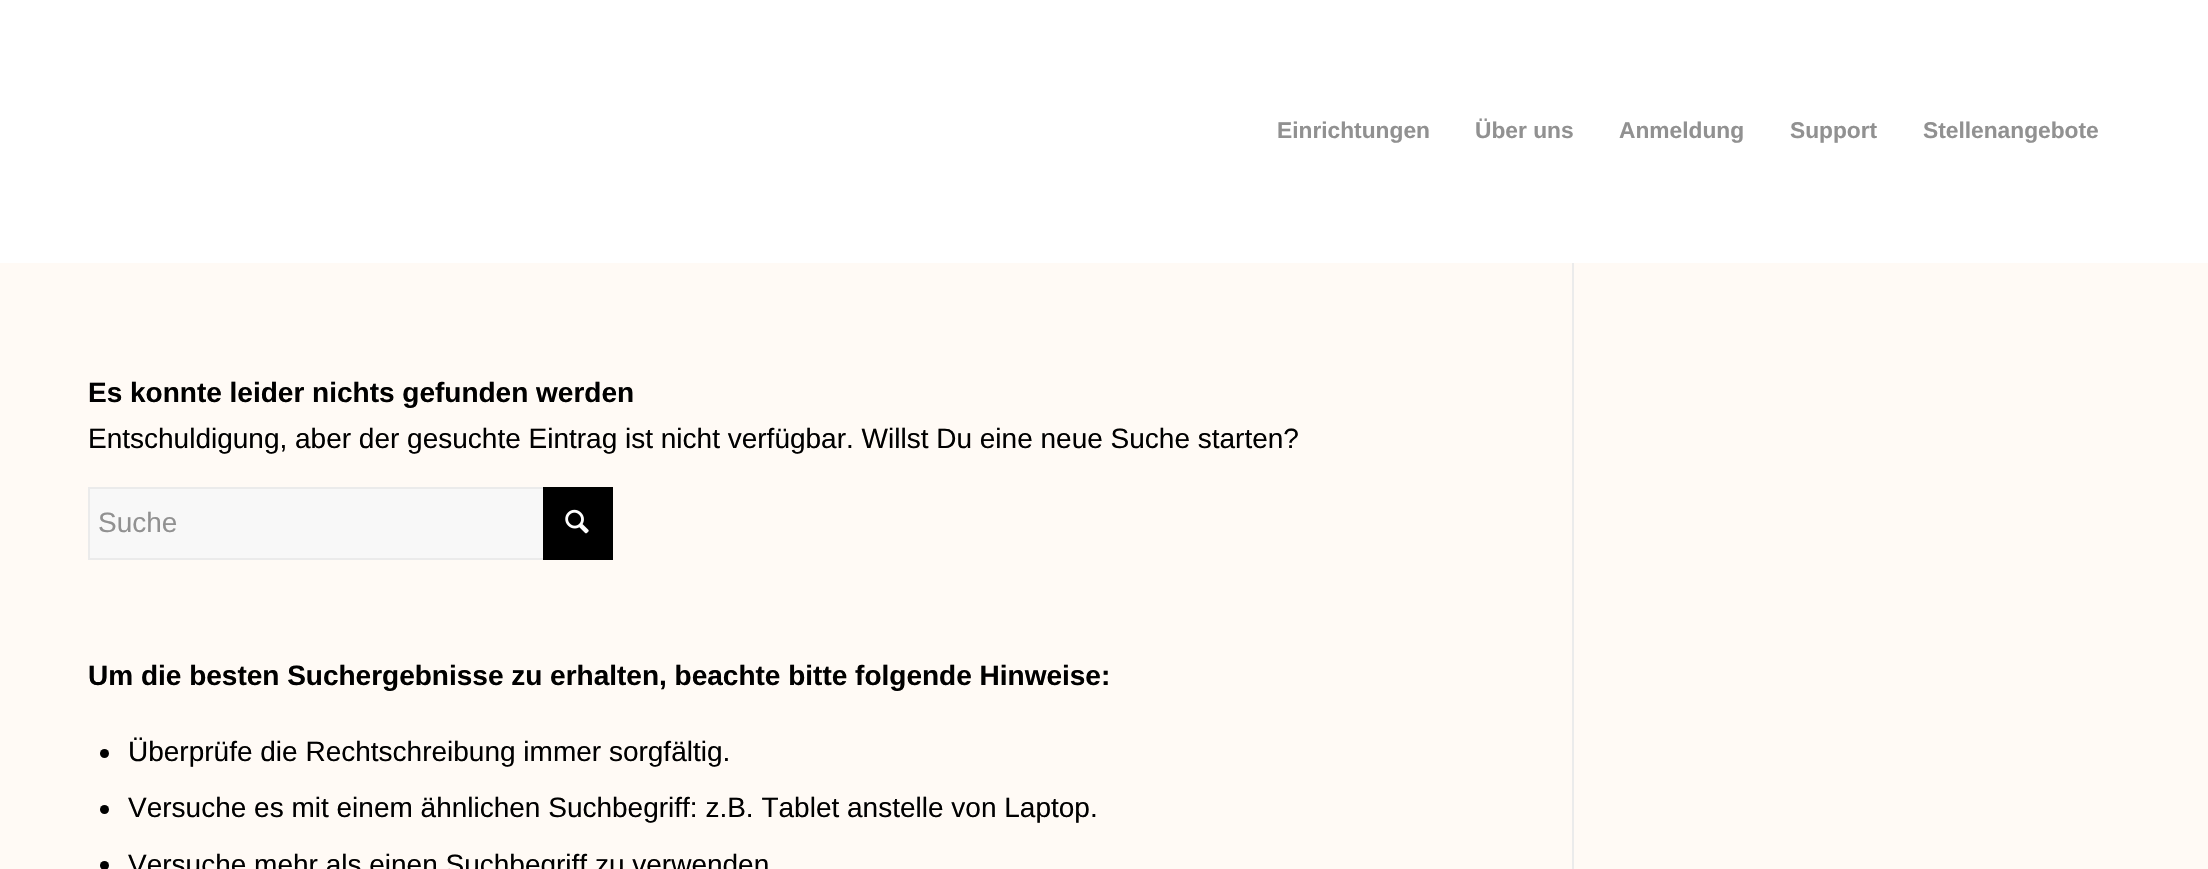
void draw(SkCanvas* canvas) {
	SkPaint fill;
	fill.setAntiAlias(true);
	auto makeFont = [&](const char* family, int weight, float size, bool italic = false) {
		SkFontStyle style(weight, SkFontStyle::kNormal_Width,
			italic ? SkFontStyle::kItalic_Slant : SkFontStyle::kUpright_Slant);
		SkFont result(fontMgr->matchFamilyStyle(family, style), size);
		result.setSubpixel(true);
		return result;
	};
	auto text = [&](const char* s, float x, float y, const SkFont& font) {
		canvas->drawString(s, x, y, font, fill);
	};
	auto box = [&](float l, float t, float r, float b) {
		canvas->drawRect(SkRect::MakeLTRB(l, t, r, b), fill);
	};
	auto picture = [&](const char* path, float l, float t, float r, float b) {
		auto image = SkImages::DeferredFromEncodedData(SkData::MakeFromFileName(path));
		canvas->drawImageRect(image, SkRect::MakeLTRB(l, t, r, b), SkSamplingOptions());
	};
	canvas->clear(0xFFFFFAF5);
	fill.setColor(0xFFEBEBEB);
	box(1572, 259, 1574, 869);
	fill.setColor(0xFFFFFFFF);
	box(0, 0, 2208, 263);
	fill.setColor(0xFFF8F8F8);
	box(90, 489, 543, 558);
	fill.setStyle(SkPaint::kStroke_Style);
	fill.setStrokeWidth(2);
	fill.setColor(0xFFEBEBEB);
	canvas->drawRect(SkRect::MakeLTRB(89, 488, 612, 559), fill);
	fill.setStyle(SkPaint::kFill_Style);
	fill.setColor(0xFF000000);
	box(543, 487, 613, 560);
	picture("image0.png", 565, 509, 589, 534);
	canvas->drawCircle(104.5f, 753.5f, 4.5f, fill);
	canvas->drawCircle(104.5f, 809.5f, 4.5f, fill);
	canvas->drawCircle(104.5f, 865.5f, 4.5f, fill);
	auto font1 = makeFont("Liberation Sans", 700, 22.75f);
	fill.setColor(0xFF919191);
	text("Einrichtungen", 1277, 138, font1);
	text("Über uns", 1475, 138, font1);
	text("Anmeldung", 1619, 138, font1);
	text("Support", 1790, 138, font1);
	text("Stellenangebote", 1923, 138, font1);
	auto font2 = makeFont("Liberation Sans", 700, 28);
	fill.setColor(0xFF000000);
	text("Es konnte leider nichts gefunden werden", 88, 402, font2);
	auto font3 = makeFont("Liberation Sans", 400, 28);
	text("Entschuldigung, aber der gesuchte Eintrag ist nicht verfügbar. Willst Du eine neue Suche starten?", 88, 448, font3);
	fill.setColor(0xFF919191);
	text("Suche", 98, 532, font3);
	fill.setColor(0xFF000000);
	text("Um die besten Suchergebnisse zu erhalten, beachte bitte folgende Hinweise:", 88, 685, font2);
	text("Überprüfe die Rechtschreibung immer sorgfältig.", 128, 761, font3);
	text("Versuche es mit einem ähnlichen Suchbegriff: z.B. Tablet anstelle von Laptop.", 128, 817, font3);
	text("Versuche mehr als einen Suchbegriff zu verwenden", 128, 874, font3);
}
